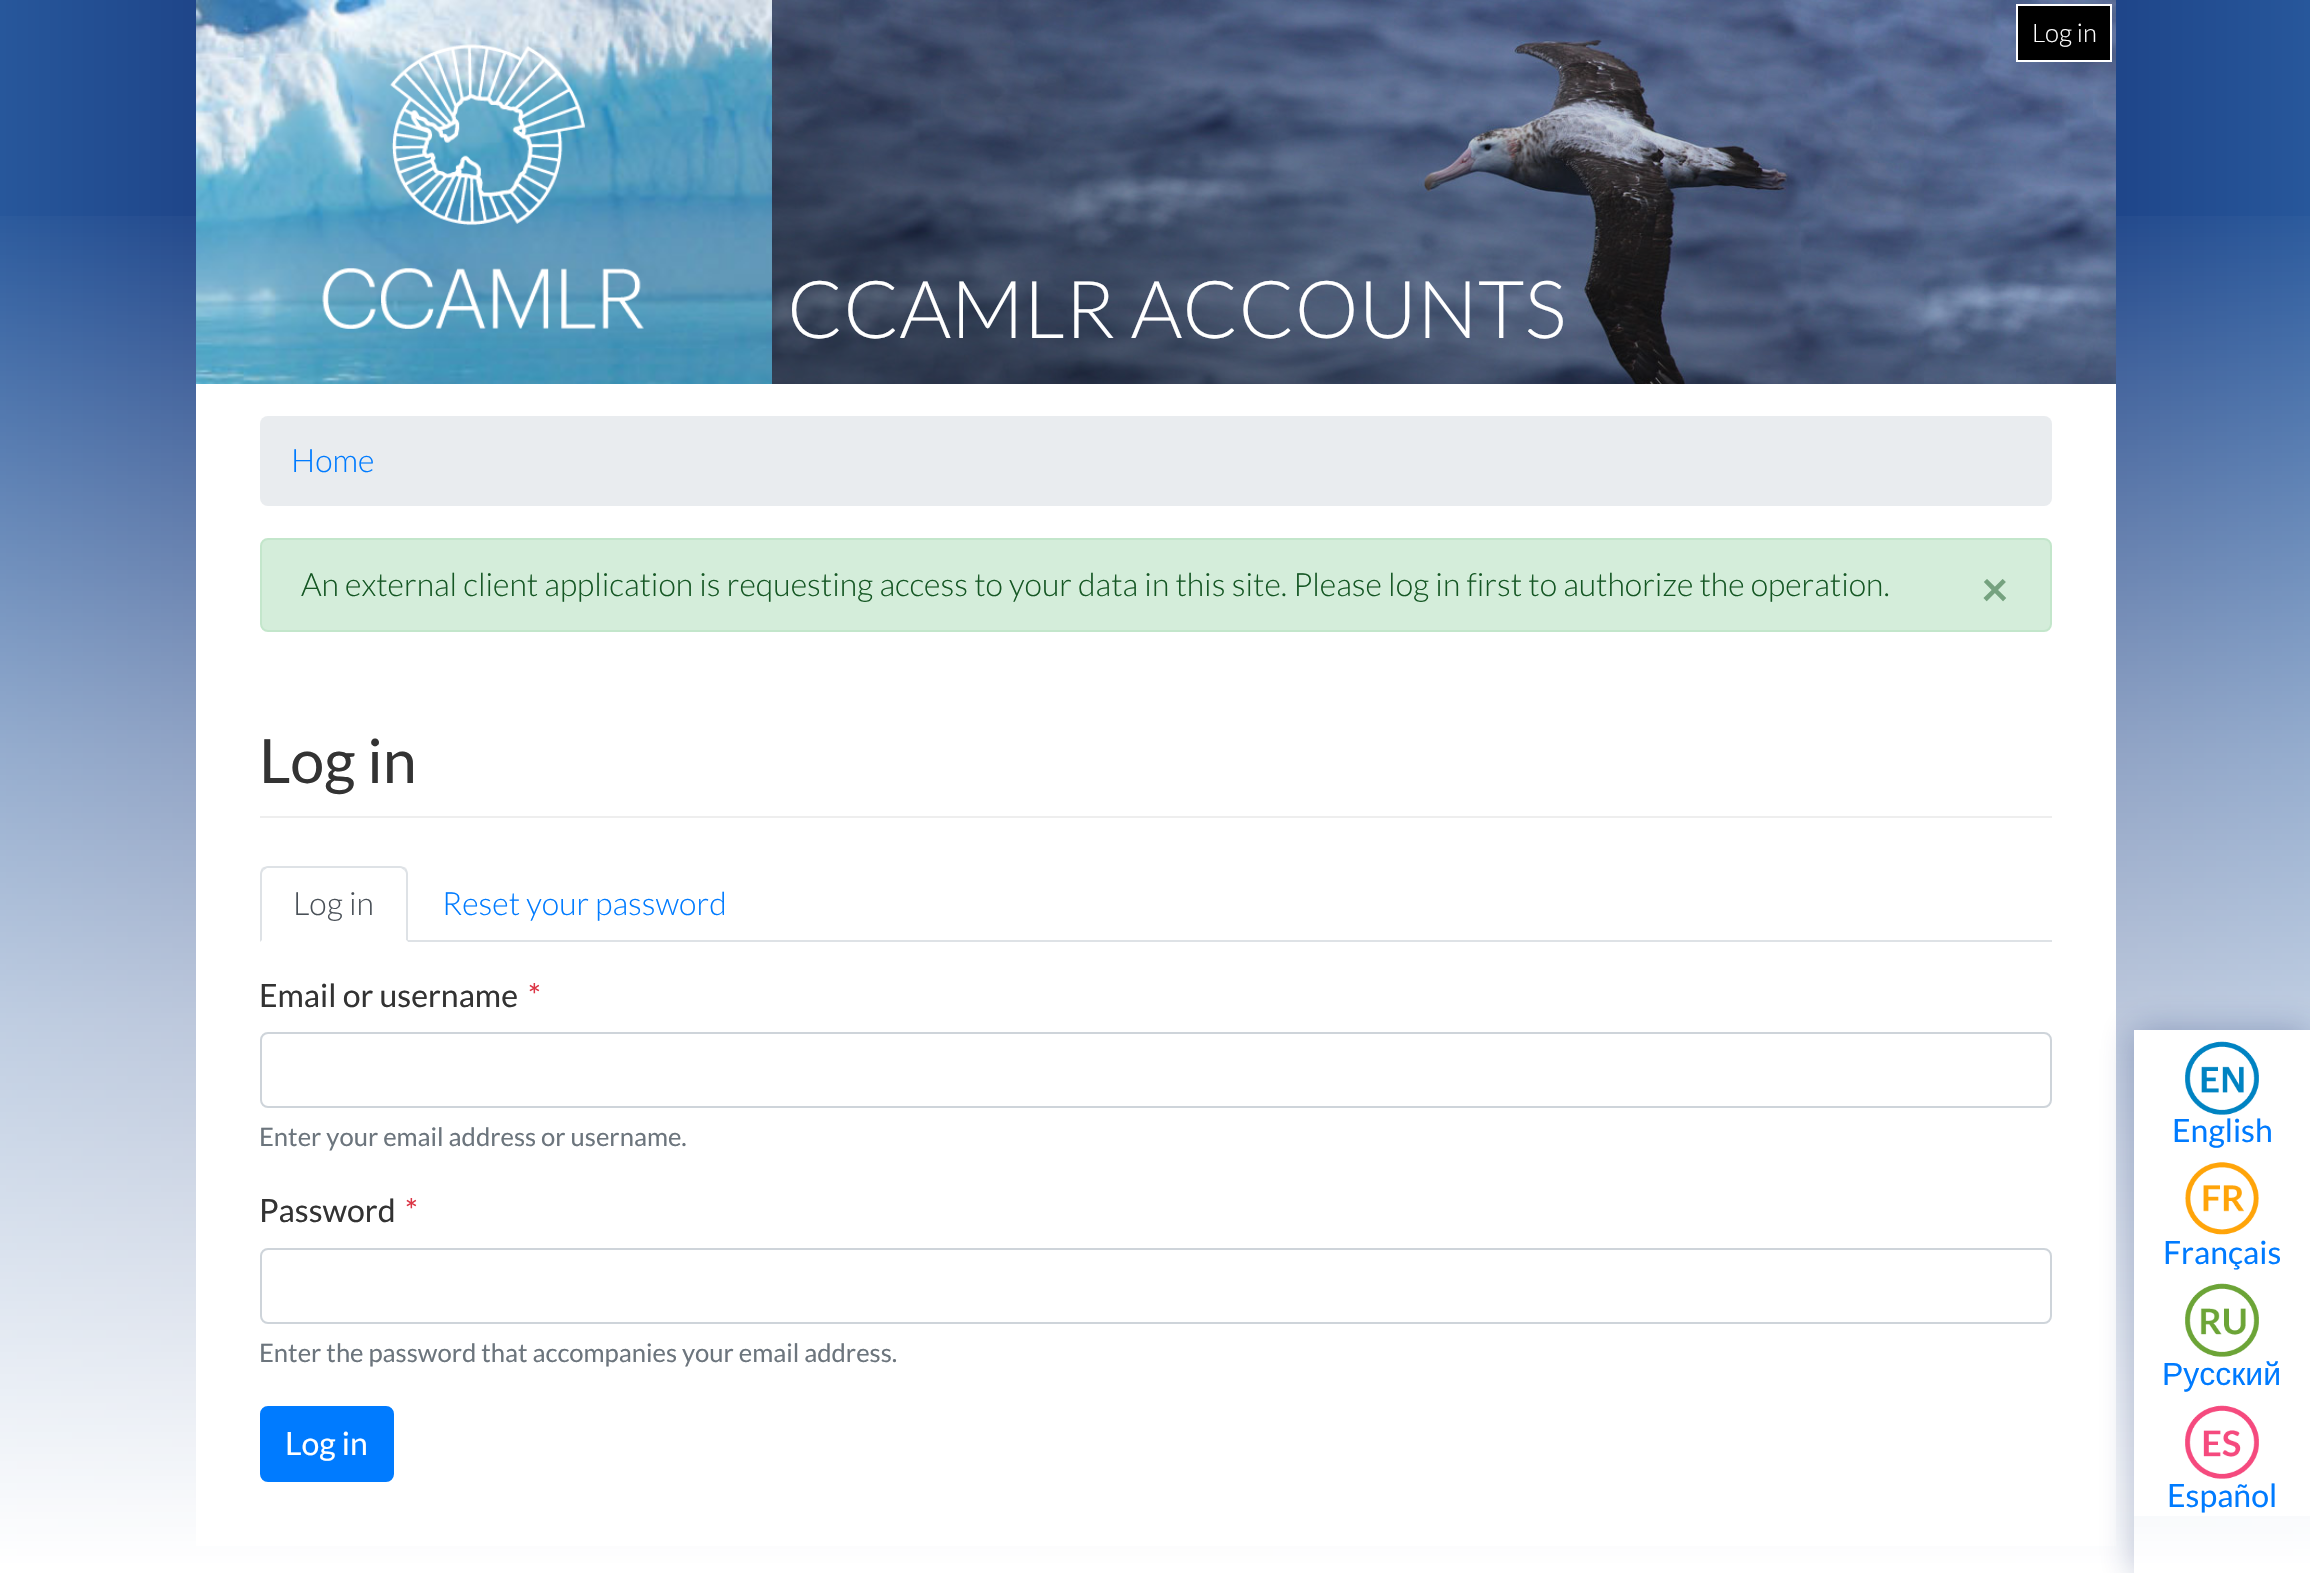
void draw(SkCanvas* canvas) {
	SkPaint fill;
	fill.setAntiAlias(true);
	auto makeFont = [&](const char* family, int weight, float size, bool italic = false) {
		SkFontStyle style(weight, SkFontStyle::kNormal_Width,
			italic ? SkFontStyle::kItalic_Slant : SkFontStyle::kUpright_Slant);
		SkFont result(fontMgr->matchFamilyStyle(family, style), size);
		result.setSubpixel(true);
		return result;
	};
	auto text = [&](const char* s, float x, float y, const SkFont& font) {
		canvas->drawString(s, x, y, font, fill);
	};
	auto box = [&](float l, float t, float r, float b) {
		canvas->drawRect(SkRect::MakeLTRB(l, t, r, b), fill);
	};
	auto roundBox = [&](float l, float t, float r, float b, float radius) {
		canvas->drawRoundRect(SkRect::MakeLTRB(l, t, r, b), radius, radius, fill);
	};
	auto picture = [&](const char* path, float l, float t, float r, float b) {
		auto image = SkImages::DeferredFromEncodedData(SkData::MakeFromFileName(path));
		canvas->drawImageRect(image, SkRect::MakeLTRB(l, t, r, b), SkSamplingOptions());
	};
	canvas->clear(0xFFFFFFFF);
	{
		const SkColor colors[] = {0xFF27579B, 0xFF0E2367, 0xFF0B1B51, 0xFF0E2367, 0xFF27579B};
		const float stops[] = {0, 0.25f, 0.5f, 0.75f, 1};
		const SkPoint ends[] = {{0, 773}, {2310, 773}};
		fill.setShader(SkGradientShader::MakeLinear(ends, colors, stops, 5, SkTileMode::kClamp));
		fill.setAlpha(255);
	}
	box(0, 0, 2310, 1563);
	{
		const SkColor colors[] = {0x00FFFFFF, 0x80FFFFFF, 0xB3FFFFFF, 0xD9FFFFFF, 0xFFFFFFFF};
		const float stops[] = {0, 0.4f, 0.6f, 0.8f, 1};
		const SkPoint ends[] = {{1155, 192}, {1155, 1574}};
		fill.setShader(SkGradientShader::MakeLinear(ends, colors, stops, 5, SkTileMode::kClamp));
		fill.setAlpha(255);
	}
	box(0, 216, 2310, 1563);
	picture("image0.png", 772, 0, 2116, 384);
	fill.setShader(nullptr);
	fill.setColor(0xFF000000);
	canvas->drawRect(SkRect::MakeLTRB(2017, 5, 2111, 61), fill);
	fill.setStyle(SkPaint::kStroke_Style);
	fill.setStrokeWidth(2);
	fill.setColor(0xFFFFFFFF);
	canvas->drawRect(SkRect::MakeLTRB(2017, 5, 2111, 61), fill);
	picture("image1.png", 196, 0, 772, 384);
	picture("image2.png", 322, 44, 644, 329);
	fill.setStyle(SkPaint::kFill_Style);
	box(196, 384, 2116, 1546);
	fill.setColor(0xFFE9ECEF);
	roundBox(260, 416, 2052, 506, 8);
	fill.setColor(0xFFD4EDDA);
	canvas->drawRoundRect(SkRect::MakeLTRB(261, 539, 2051, 631), 7, 7, fill);
	fill.setStyle(SkPaint::kStroke_Style);
	fill.setColor(0xFFC3E6CB);
	canvas->drawRoundRect(SkRect::MakeLTRB(261, 539, 2051, 631), 7, 7, fill);
	fill.setStyle(SkPaint::kFill_Style);
	fill.setColor(0xFFEEEEEE);
	box(260, 816, 2052, 818);
	fill.setColor(0xFFDEE2E6);
	box(408, 940, 2052, 942);
	canvas->drawPath(SkPathBuilder().moveTo(268, 866).cubicTo(266, 866, 264, 867, 262, 868).lineTo(264, 870).lineTo(267, 868).lineTo(401, 868).lineTo(404, 870).lineTo(406, 868).cubicTo(404, 867, 402, 866, 400, 866).close().detach(), fill);
	canvas->drawPath(SkPathBuilder().moveTo(408, 942).lineTo(408, 874).cubicTo(408, 872, 407, 870, 406, 868).lineTo(404, 870).cubicTo(405, 871, 406, 872, 406, 874).lineTo(406, 940).close().detach(), fill);
	fill.setColor(0xFFFFFFFF);
	canvas->drawPath(SkPathBuilder().moveTo(408, 942).lineTo(406, 940).lineTo(262, 940).lineTo(260, 942).close().detach(), fill);
	fill.setColor(0xFFDEE2E6);
	canvas->drawPath(SkPathBuilder().moveTo(260, 942).lineTo(262, 940).lineTo(262, 874).cubicTo(262, 872, 263, 871, 264, 870).lineTo(262, 868).cubicTo(261, 870, 260, 872, 260, 874).close().detach(), fill);
	fill.setStyle(SkPaint::kStroke_Style);
	fill.setColor(0xFFCED4DA);
	canvas->drawRoundRect(SkRect::MakeLTRB(261, 1033, 2051, 1107), 7, 7, fill);
	canvas->drawRoundRect(SkRect::MakeLTRB(261, 1249, 2051, 1323), 7, 7, fill);
	fill.setStyle(SkPaint::kFill_Style);
	fill.setColor(0xFF007BFF);
	canvas->drawRoundRect(SkRect::MakeLTRB(261, 1407, 393, 1481), 7, 7, fill);
	fill.setStyle(SkPaint::kStroke_Style);
	canvas->drawRoundRect(SkRect::MakeLTRB(261, 1407, 393, 1481), 7, 7, fill);
	canvas->save();
	canvas->clipPath(SkPathBuilder(SkPathFillType::kEvenOdd).moveTo(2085, 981).lineTo(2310, 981).lineTo(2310, 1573).lineTo(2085, 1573).close().moveTo(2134, 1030).lineTo(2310, 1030).lineTo(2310, 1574).lineTo(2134, 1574).close().detach(), true);
	fill.setStyle(SkPaint::kFill_Style);
	fill.setColor(0x4D0E2367);
	fill.setMaskFilter(SkMaskFilter::MakeBlur(kNormal_SkBlurStyle, 16));
	canvas->drawRect(SkRect::MakeLTRB(2134, 1030, 2310, 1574), fill);
	fill.setMaskFilter(nullptr);
	canvas->restore();
	fill.setColor(0xFFFFFFFF);
	box(2134, 1030, 2310, 1516);
	picture("image3.png", 2185, 1041, 2259, 1115);
	picture("image4.png", 2185, 1162, 2259, 1235);
	picture("image5.png", 2185, 1283, 2259, 1357);
	picture("image6.png", 2185, 1405, 2259, 1479);
	auto font1 = makeFont("Lato", 300, 25.6f);
	text("Log in", 2032, 42, font1);
	auto font2 = makeFont("Lato", 300, 80);
	text("CCAMLR ACCOUNTS", 787, 338, font2);
	auto font3 = makeFont("Lato", 300, 32);
	fill.setColor(0xFF007BFF);
	text("Home", 291, 472, font3);
	fill.setColor(0xFF155724);
	text("An external client application is requesting access to your data in this site. Please log in first to authorize the operation.", 301, 596, font3);
	auto font4 = makeFont("Lato", 700, 48);
	fill.setColor(0xFF75A27F);
	text("×", 1981, 606, font4);
	auto font5 = makeFont("Lato", 400, 61);
	fill.setColor(0xFF333333);
	text("Log in", 259, 783, font5);
	fill.setColor(0xFF495057);
	text("Log in", 293, 915, font3);
	fill.setColor(0xFF007BFF);
	text("Reset your password", 442, 915, font3);
	auto font6 = makeFont("Lato", 400, 32);
	fill.setColor(0xFF333333);
	text("Email or username", 259, 1007, font6);
	fill.setColor(0xFFDC3545);
	text("*", 528, 1007, font6);
	auto font7 = makeFont("Lato", 400, 25.6f);
	fill.setColor(0xFF6C757D);
	text("Enter your email address or username.", 259, 1146, font7);
	fill.setColor(0xFF333333);
	text("Password", 259, 1222, font6);
	fill.setColor(0xFFDC3545);
	text("*", 405, 1222, font6);
	fill.setColor(0xFF6C757D);
	text("Enter the password that accompanies your email address.", 259, 1362, font7);
	fill.setColor(0xFFFFFFFF);
	text("Log in", 285, 1455, font6);
	fill.setColor(0xFF007BFF);
	text("English", 2172, 1142, font6);
	text("Français", 2163, 1264, font6);
	auto font8 = makeFont("Liberation Sans", 400, 32);
	text("Русский", 2162, 1385, font8);
	text("Español", 2167, 1507, font6);
}
